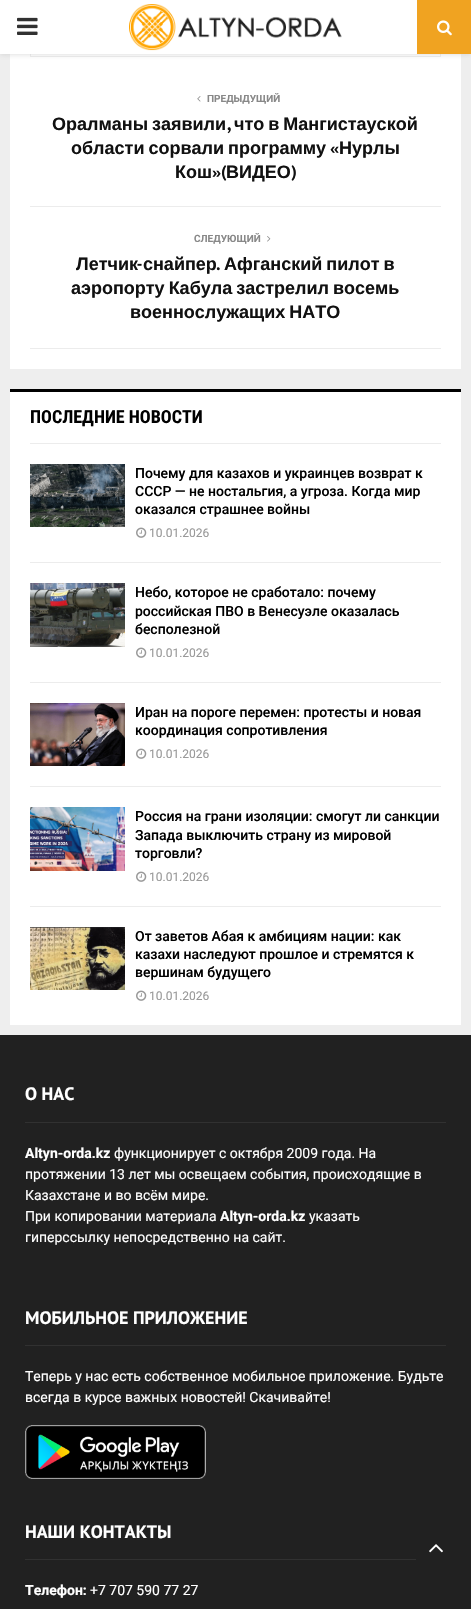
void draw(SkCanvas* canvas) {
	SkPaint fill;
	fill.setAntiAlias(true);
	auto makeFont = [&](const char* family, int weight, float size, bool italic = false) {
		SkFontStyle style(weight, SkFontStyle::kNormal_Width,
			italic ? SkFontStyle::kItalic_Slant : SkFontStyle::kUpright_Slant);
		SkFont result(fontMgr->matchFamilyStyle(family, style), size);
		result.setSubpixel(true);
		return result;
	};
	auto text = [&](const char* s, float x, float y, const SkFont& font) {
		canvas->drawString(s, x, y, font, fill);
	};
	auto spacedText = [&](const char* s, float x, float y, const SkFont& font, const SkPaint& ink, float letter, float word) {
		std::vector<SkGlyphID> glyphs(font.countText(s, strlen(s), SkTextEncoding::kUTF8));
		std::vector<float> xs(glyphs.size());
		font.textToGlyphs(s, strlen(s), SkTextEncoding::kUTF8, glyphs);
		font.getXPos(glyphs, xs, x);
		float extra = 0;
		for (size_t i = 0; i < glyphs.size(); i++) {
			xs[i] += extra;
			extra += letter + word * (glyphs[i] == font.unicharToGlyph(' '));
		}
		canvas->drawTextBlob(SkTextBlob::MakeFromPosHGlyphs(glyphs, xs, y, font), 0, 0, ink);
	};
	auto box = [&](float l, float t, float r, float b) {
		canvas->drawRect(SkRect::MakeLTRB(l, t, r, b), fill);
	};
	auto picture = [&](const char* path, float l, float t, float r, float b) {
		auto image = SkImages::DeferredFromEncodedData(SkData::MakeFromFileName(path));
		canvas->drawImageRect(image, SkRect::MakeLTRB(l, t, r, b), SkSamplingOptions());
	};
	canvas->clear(0xFFEEEEEE);
	fill.setColor(0xFFFFFFFF);
	box(10, 54, 461, 369);
	fill.setStyle(SkPaint::kStroke_Style);
	fill.setStrokeWidth(1);
	fill.setColor(0xFFECECEC);
	canvas->drawRect(SkRect::MakeLTRB(30.5f, -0.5f, 440.5f, 56.5f), fill);
	fill.setStyle(SkPaint::kFill_Style);
	fill.setColor(0x75BEBEBE);
	fill.setMaskFilter(SkMaskFilter::MakeBlur(kNormal_SkBlurStyle, 2.5f));
	canvas->drawRect(SkRect::MakeLTRB(0, 1, 471, 55), fill);
	fill.setMaskFilter(nullptr);
	fill.setColor(0xFFFFFFFF);
	box(0, 0, 417, 54);
	picture("image0.png", 17, 17, 38, 35);
	picture("image1.png", 129, 4, 342, 51);
	fill.setColor(0xFFF0A321);
	box(417, 0, 471, 54);
	picture("image2.png", 437, 20, 452, 36);
	fill.setColor(0xFFECECEC);
	box(30, 348, 441, 349);
	picture("image3.png", 197, 96, 201, 102);
	box(30, 206, 441, 207);
	picture("image4.png", 267, 236, 271, 242);
	fill.setColor(0xFFFFFFFF);
	box(10, 392, 461, 1025);
	fill.setColor(0xFFECECEC);
	box(30, 443, 441, 444);
	fill.setColor(0xFF000000);
	box(10, 389, 461, 392);
	fill.setColor(0xFFECECEC);
	box(30, 562, 441, 563);
	picture("image5.png", 30, 464, 125, 527);
	picture("image6.png", 136, 527, 147, 538);
	box(30, 682, 441, 683);
	picture("image7.png", 30, 583, 125, 647);
	picture("image6.png", 136, 647, 147, 658);
	box(30, 786, 441, 787);
	picture("image8.png", 30, 703, 125, 766);
	picture("image6.png", 136, 748, 147, 759);
	box(30, 906, 441, 907);
	picture("image9.png", 30, 807, 125, 871);
	picture("image6.png", 136, 871, 147, 882);
	picture("image10.png", 30, 927, 125, 990);
	picture("image6.png", 136, 990, 147, 1001);
	fill.setColor(0xFF212121);
	box(0, 1035, 471, 1609);
	fill.setColor(0xFF313131);
	box(25, 1122, 446, 1123);
	box(25, 1345, 446, 1346);
	picture("image11.png", 25, 1425, 206, 1479);
	box(25, 1559, 416, 1560);
	picture("image12.png", 429, 1544, 443, 1553);
	auto font1 = makeFont("Roboto", 700, 10);
	fill.setColor(0xFF888888);
	text("ПРЕДЫДУЩИЙ", 207, 102, font1);
	auto font2 = makeFont("Liberation Sans", 700, 18);
	fill.setColor(0xFF111111);
	spacedText("Оралманы заявили", 52, 130, font2, fill, 0, -1);
	auto font3 = makeFont("Mukta Vaani", 700, 18);
	text(",", 227, 130, font3);
	spacedText("что в Мангистауской", 234, 130, font2, fill, 0, -1);
	spacedText("области сорвали программу", 71, 154, font2, fill, 0, -1);
	text("«", 330, 154, font3);
	text("Нурлы", 339, 154, font2);
	text("Кош", 175, 178, font2);
	text("»(", 212, 178, font3);
	text("ВИДЕО", 226, 178, font2);
	text(")", 291, 178, font3);
	fill.setColor(0xFF888888);
	text("СЛЕДУЮЩИЙ", 194, 242, font1);
	fill.setColor(0xFF111111);
	text("Летчик снайпер", 76, 270, font2);
	spacedText("Афганский пилот в", 224, 270, font2, fill, 0, -1);
	text("-", 137, 270, font3);
	text(".", 216, 270, font3);
	spacedText("аэропорту Кабула застрелил восемь", 71, 294, font2, fill, 0, -1);
	spacedText("военнослужащих НАТО", 130, 318, font2, fill, 0, -1);
	auto font4 = makeFont("Roboto Condensed", 700, 18);
	fill.setColor(0xFF000000);
	text("ПОСЛЕДНИЕ НОВОСТИ", 30, 423, font4);
	auto font5 = makeFont("Roboto", 500, 14);
	text("Почему для казахов и украинцев возврат к", 135, 478, font5);
	text("СССР — не ностальгия, а угроза. Когда мир", 135, 496, font5);
	text("оказался страшнее войны", 135, 514, font5);
	auto font6 = makeFont("Roboto", 400, 12);
	fill.setColor(0xFF999999);
	text("10.01.2026", 149, 537, font6);
	fill.setColor(0xFF000000);
	text("Небо, которое не сработало: почему", 135, 597, font5);
	text("российская ПВО в Венесуэле оказалась", 135, 616, font5);
	text("бесполезной", 135, 634, font5);
	fill.setColor(0xFF999999);
	text("10.01.2026", 149, 657, font6);
	fill.setColor(0xFF000000);
	text("Иран на пороге перемен: протесты и новая", 135, 717, font5);
	text("координация сопротивления", 135, 735, font5);
	fill.setColor(0xFF999999);
	text("10.01.2026", 149, 758, font6);
	fill.setColor(0xFF000000);
	text("Россия на грани изоляции: смогут ли санкции", 135, 821, font5);
	text("Запада выключить страну из мировой", 135, 840, font5);
	text("торговли?", 135, 858, font5);
	fill.setColor(0xFF999999);
	text("10.01.2026", 149, 881, font6);
	fill.setColor(0xFF000000);
	text("От заветов Абая к амбициям нации: как", 135, 941, font5);
	text("казахи наследуют прошлое и стремятся к", 135, 959, font5);
	text("вершинам будущего", 135, 977, font5);
	fill.setColor(0xFF999999);
	text("10.01.2026", 149, 1000, font6);
	auto font7 = makeFont("PT Sans", 700, 18);
	fill.setColor(0xFFFFFFFF);
	text("О НАС", 25, 1100, font7);
	auto font8 = makeFont("Roboto", 700, 14);
	text("Altyn-orda.kz", 25, 1158, font8);
	auto font9 = makeFont("Roboto", 400, 14);
	text("функционирует с октября 2009 года. На", 114, 1158, font9);
	text("протяжении 13 лет мы освещаем события, происходящие в", 25, 1179, font9);
	text("Казахстане и во всём мире.", 25, 1200, font9);
	text("При копировании материала", 25, 1221, font9);
	text("Altyn-orda.kz", 220, 1221, font8);
	text("указать", 309, 1221, font9);
	text("гиперссылку непосредственно на сайт.", 25, 1242, font9);
	text("МОБИЛЬНОЕ ПРИЛОЖЕНИЕ", 25, 1324, font7);
	text("Теперь у нас есть собственное мобильное приложение. Будьте", 25, 1381, font9);
	text("всегда в курсе важных новостей! Скачивайте!", 25, 1402, font9);
	text("НАШИ КОНТАКТЫ", 25, 1538, font7);
	text("Телефон:", 25, 1595, font8);
	text("+7 707 590 77 27", 90, 1595, font9);
}
